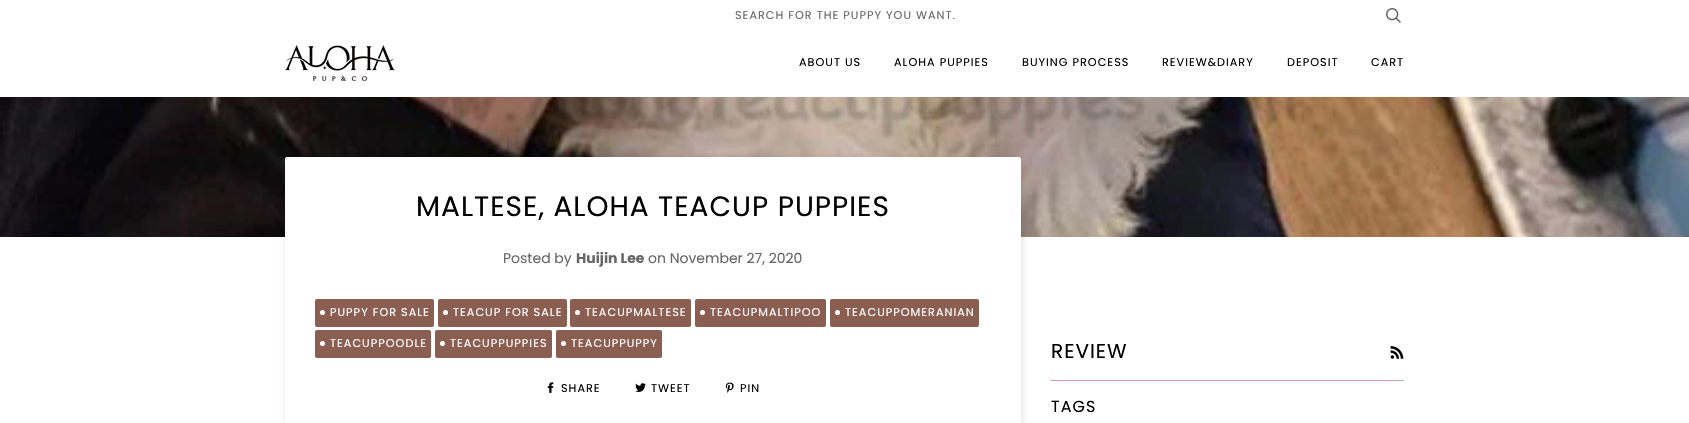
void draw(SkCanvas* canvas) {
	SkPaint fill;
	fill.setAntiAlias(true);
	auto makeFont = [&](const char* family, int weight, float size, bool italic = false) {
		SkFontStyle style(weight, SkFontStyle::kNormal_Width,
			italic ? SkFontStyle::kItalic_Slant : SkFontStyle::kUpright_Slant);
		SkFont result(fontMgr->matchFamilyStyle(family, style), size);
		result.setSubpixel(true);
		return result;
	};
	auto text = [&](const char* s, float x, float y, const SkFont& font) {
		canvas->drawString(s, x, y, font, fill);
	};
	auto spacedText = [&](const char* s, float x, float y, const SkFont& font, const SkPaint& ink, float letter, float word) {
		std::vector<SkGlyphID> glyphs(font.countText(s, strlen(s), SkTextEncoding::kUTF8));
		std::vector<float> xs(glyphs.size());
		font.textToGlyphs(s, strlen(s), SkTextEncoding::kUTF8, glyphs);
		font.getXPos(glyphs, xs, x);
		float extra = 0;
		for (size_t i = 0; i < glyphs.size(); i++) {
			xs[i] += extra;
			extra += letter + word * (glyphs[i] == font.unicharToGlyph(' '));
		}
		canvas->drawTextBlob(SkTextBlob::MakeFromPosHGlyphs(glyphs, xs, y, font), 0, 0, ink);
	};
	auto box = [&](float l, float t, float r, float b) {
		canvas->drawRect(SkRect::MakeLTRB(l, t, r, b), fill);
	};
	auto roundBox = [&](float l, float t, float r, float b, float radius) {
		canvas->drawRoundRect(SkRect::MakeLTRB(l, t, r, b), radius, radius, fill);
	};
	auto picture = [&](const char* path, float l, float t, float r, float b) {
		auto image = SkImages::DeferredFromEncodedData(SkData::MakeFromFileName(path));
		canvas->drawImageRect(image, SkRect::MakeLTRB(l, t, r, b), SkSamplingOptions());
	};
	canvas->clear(0xFFFFFFFF);
	picture("image0.png", 1386, 8, 1401, 23);
	picture("image1.png", 285, 45, 395, 81);
	picture("image2.png", 0, 97, 1689, 237);
	fill.setColor(0x1A000000);
	fill.setMaskFilter(SkMaskFilter::MakeBlur(kNormal_SkBlurStyle, 3.5f));
	canvas->drawRoundRect(SkRect::MakeLTRB(286, 158, 1022, 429), 2, 2, fill);
	fill.setMaskFilter(nullptr);
	fill.setColor(0xFFFFFFFF);
	roundBox(285, 157, 1021, 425, 2);
	fill.setColor(0xFF8A5E51);
	roundBox(315, 299, 434, 327, 2);
	fill.setColor(0xFFFFFFFF);
	canvas->drawCircle(322.5f, 312.5f, 2.5f, fill);
	fill.setColor(0xFF8A5E51);
	roundBox(438, 299, 567, 327, 2);
	fill.setColor(0xFFFFFFFF);
	canvas->drawCircle(445.5f, 312.5f, 2.5f, fill);
	fill.setColor(0xFF8A5E51);
	roundBox(570, 299, 691, 327, 2);
	fill.setColor(0xFFFFFFFF);
	canvas->drawCircle(577.5f, 312.5f, 2.5f, fill);
	fill.setColor(0xFF8A5E51);
	roundBox(695, 299, 826, 327, 2);
	fill.setColor(0xFFFFFFFF);
	canvas->drawCircle(702.5f, 312.5f, 2.5f, fill);
	fill.setColor(0xFF8A5E51);
	roundBox(830, 299, 979, 327, 2);
	fill.setColor(0xFFFFFFFF);
	canvas->drawCircle(837.5f, 312.5f, 2.5f, fill);
	fill.setColor(0xFF8A5E51);
	roundBox(315, 330, 431, 358, 2);
	fill.setColor(0xFFFFFFFF);
	canvas->drawCircle(322.5f, 343.5f, 2.5f, fill);
	fill.setColor(0xFF8A5E51);
	roundBox(435, 330, 552, 358, 2);
	fill.setColor(0xFFFFFFFF);
	canvas->drawCircle(442.5f, 343.5f, 2.5f, fill);
	fill.setColor(0xFF8A5E51);
	roundBox(556, 330, 662, 358, 2);
	fill.setColor(0xFFFFFFFF);
	canvas->drawCircle(563.5f, 343.5f, 2.5f, fill);
	picture("image3.png", 547, 382, 554, 393);
	picture("image4.png", 635, 383, 646, 392);
	picture("image5.png", 725, 382, 734, 393);
	picture("image6.png", 1390, 346, 1404, 359);
	fill.setColor(0xFFCFA1A1);
	box(1051, 380, 1404, 381);
	auto font1 = makeFont("Poppins", 400, 11.25f);
	fill.setColor(0xFF666666);
	spacedText("SEARCH FOR THE PUPPY YOU WANT.", 735, 19, font1, fill, 1, 0);
	fill.setColor(0xFF000000);
	spacedText("ABOUT US", 799, 66, font1, fill, 1, 0);
	spacedText("ALOHA PUPPIES", 894, 66, font1, fill, 1, 0);
	spacedText("BUYING PROCESS", 1022, 66, font1, fill, 1, 0);
	spacedText("REVIEW&DIARY", 1162, 66, font1, fill, 1, 0);
	spacedText("DEPOSIT", 1287, 66, font1, fill, 1, 0);
	spacedText("CART", 1371, 66, font1, fill, 1, 0);
	auto font2 = makeFont("Poppins", 400, 28);
	spacedText("MALTESE, ALOHA TEACUP PUPPIES", 416, 216, font2, fill, 1, 0);
	auto font3 = makeFont("Poppins", 400, 14);
	fill.setColor(0xFF666666);
	text("Posted by", 503, 263, font3);
	auto font4 = makeFont("Poppins", 700, 14);
	text("Huijin Lee", 576, 263, font4);
	text("on November 27, 2020", 648, 263, font3);
	fill.setColor(0xFFFFFFFF);
	spacedText("PUPPY FOR SALE", 330, 316, font1, fill, 1, 0);
	spacedText("TEACUP FOR SALE", 453, 316, font1, fill, 1, 0);
	spacedText("TEACUPMALTESE", 585, 316, font1, fill, 1, 0);
	spacedText("TEACUPMALTIPOO", 710, 316, font1, fill, 1, 0);
	spacedText("TEACUPPOMERANIAN", 845, 316, font1, fill, 1, 0);
	spacedText("TEACUPPOODLE", 330, 347, font1, fill, 1, 0);
	spacedText("TEACUPPUPPIES", 450, 347, font1, fill, 1, 0);
	spacedText("TEACUPPUPPY", 571, 347, font1, fill, 1, 0);
	fill.setColor(0xFF000000);
	spacedText("SHARE", 561, 392, font1, fill, 1, 0);
	spacedText("TWEET", 651, 392, font1, fill, 1, 0);
	spacedText("PIN", 740, 392, font1, fill, 1, 0);
	auto font5 = makeFont("Poppins", 400, 20);
	spacedText("REVIEW", 1051, 358, font5, fill, 1, 0);
	auto font6 = makeFont("Poppins", 400, 16);
	spacedText("TAGS", 1051, 412, font6, fill, 1, 0);
}
